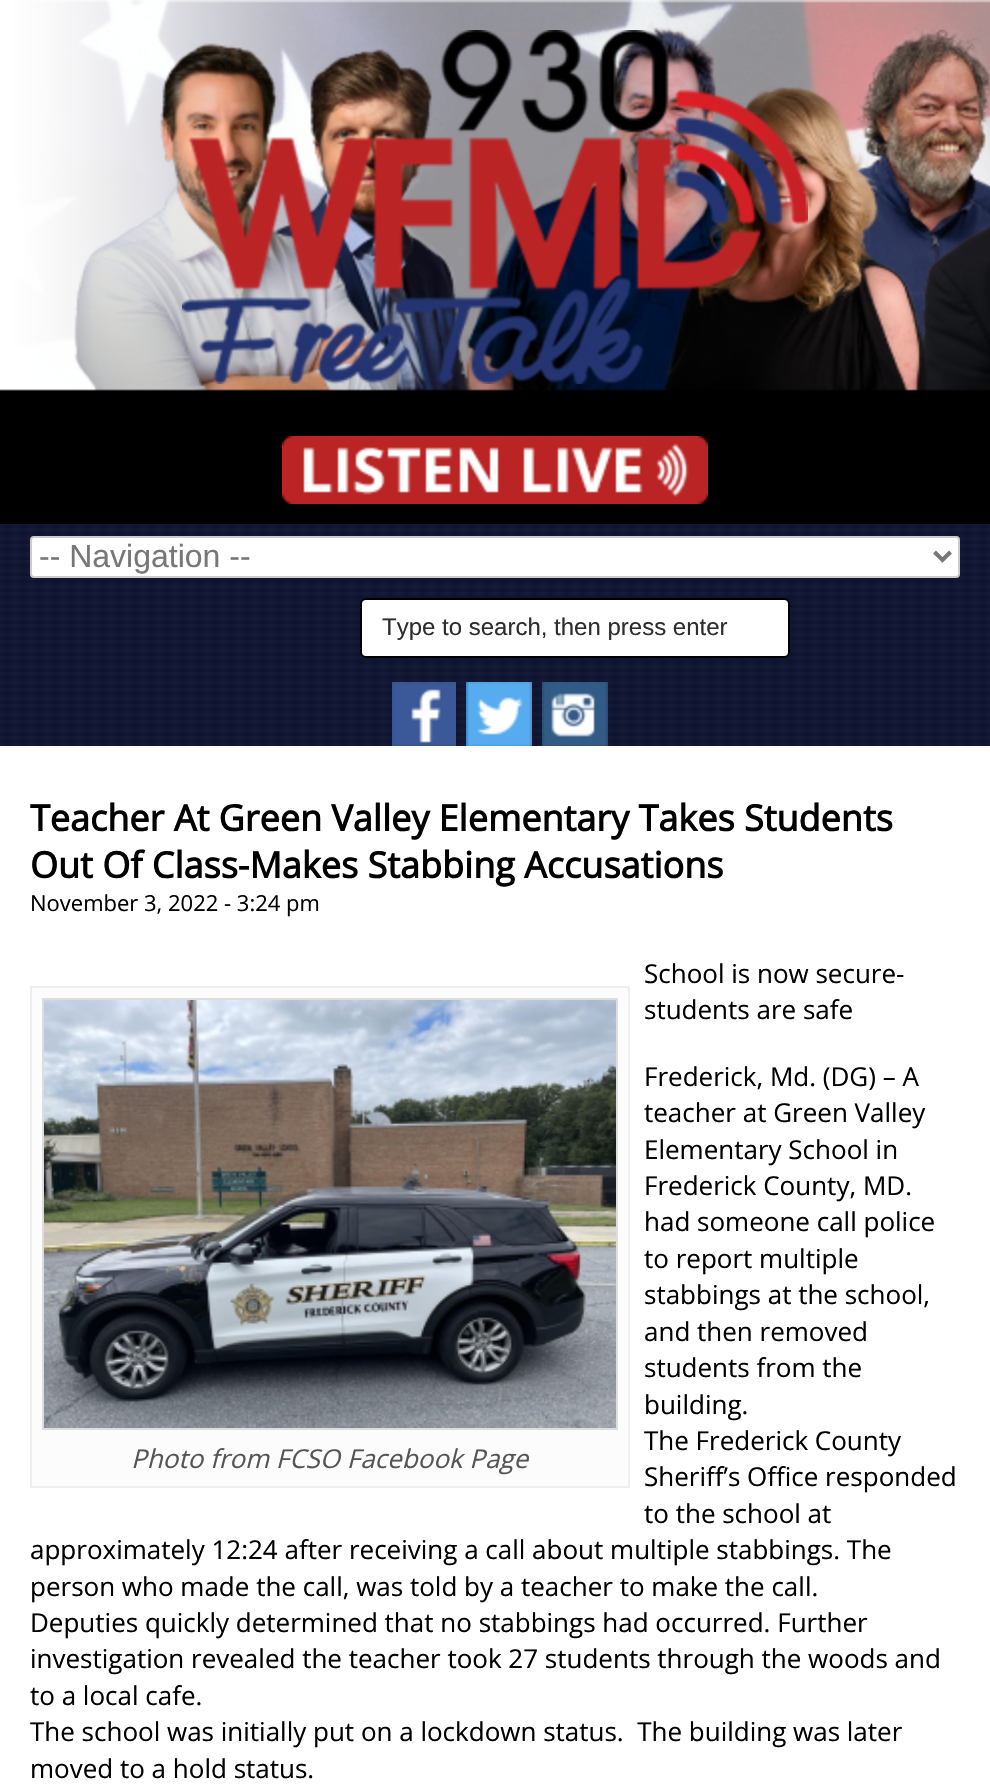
void draw(SkCanvas* canvas) {
	SkPaint fill;
	fill.setAntiAlias(true);
	auto makeFont = [&](const char* family, int weight, float size, bool italic = false) {
		SkFontStyle style(weight, SkFontStyle::kNormal_Width,
			italic ? SkFontStyle::kItalic_Slant : SkFontStyle::kUpright_Slant);
		SkFont result(fontMgr->matchFamilyStyle(family, style), size);
		result.setSubpixel(true);
		return result;
	};
	auto text = [&](const char* s, float x, float y, const SkFont& font) {
		canvas->drawString(s, x, y, font, fill);
	};
	auto box = [&](float l, float t, float r, float b) {
		canvas->drawRect(SkRect::MakeLTRB(l, t, r, b), fill);
	};
	auto picture = [&](const char* path, float l, float t, float r, float b) {
		auto image = SkImages::DeferredFromEncodedData(SkData::MakeFromFileName(path));
		canvas->drawImageRect(image, SkRect::MakeLTRB(l, t, r, b), SkSamplingOptions());
	};
	canvas->clear(0xFFFFFFFF);
	picture("image0.png", 0, 524, 990, 746);
	picture("image1.png", 0, 0, 990, 426);
	picture("image2.png", 182, 30, 808, 384);
	fill.setColor(0xFF000000);
	box(0, 426, 990, 524);
	picture("image3.png", 282, 436, 708, 504);
	fill.setColor(0xFFFFFFFF);
	canvas->drawRoundRect(SkRect::MakeLTRB(31, 537, 959, 577), 3, 3, fill);
	fill.setStyle(SkPaint::kStroke_Style);
	fill.setStrokeWidth(2);
	fill.setColor(0xFFCCCCCC);
	canvas->drawRoundRect(SkRect::MakeLTRB(31, 537, 959, 577), 3, 3, fill);
	fill.setStrokeWidth(4);
	fill.setColor(0xFF777777);
	canvas->drawPath(SkPathBuilder().moveTo(934.5f, 552).lineTo(942.5f, 560).lineTo(950.5f, 552).detach(), fill);
	fill.setStyle(SkPaint::kFill_Style);
	fill.setColor(0xFFFFFFFF);
	canvas->drawRoundRect(SkRect::MakeLTRB(361, 599, 789, 657), 5, 5, fill);
	fill.setStyle(SkPaint::kStroke_Style);
	fill.setStrokeWidth(2);
	fill.setColor(0xFF000000);
	canvas->drawRoundRect(SkRect::MakeLTRB(361, 599, 789, 657), 5, 5, fill);
	picture("image4.png", 392, 682, 456, 746);
	picture("image5.png", 466, 682, 532, 746);
	picture("image6.png", 542, 682, 608, 746);
	fill.setStyle(SkPaint::kFill_Style);
	fill.setColor(0xFFFCFCFC);
	canvas->drawRect(SkRect::MakeLTRB(31, 987, 629, 1487), fill);
	fill.setStyle(SkPaint::kStroke_Style);
	fill.setColor(0xFFEEEEEE);
	canvas->drawRect(SkRect::MakeLTRB(31, 987, 629, 1487), fill);
	fill.setColor(0xFFDDDDDD);
	canvas->drawRect(SkRect::MakeLTRB(43, 999, 617, 1429), fill);
	picture("image7.png", 44, 1000, 616, 1428);
	auto font1 = makeFont("Liberation Sans", 400, 32);
	fill.setStyle(SkPaint::kFill_Style);
	fill.setColor(0xFF777777);
	text("-- Navigation --", 39, 567, font1);
	auto font2 = makeFont("Liberation Sans", 400, 24);
	fill.setColor(0xFF2D2D2D);
	text("Type to search, then press enter", 382, 635, font2);
	auto font3 = makeFont("Open Sans", 700, 36);
	fill.setColor(0xFF000000);
	text("Teacher At Green Valley Elementary Takes Students", 30, 831, font3);
	text("Out Of Class-Makes Stabbing Accusations", 30, 878, font3);
	auto font4 = makeFont("Open Sans", 400, 22);
	text("November 3, 2022 - 3:24 pm", 30, 911, font4);
	auto font5 = makeFont("Open Sans", 400, 26);
	text("School is now secure-", 644, 983, font5);
	text("students are safe", 644, 1019, font5);
	text("Frederick, Md. (DG) – A", 644, 1086, font5);
	text("teacher at Green Valley", 644, 1122, font5);
	text("Elementary School in", 644, 1159, font5);
	text("Frederick County, MD.", 644, 1195, font5);
	text("had someone call police", 644, 1231, font5);
	text("to report multiple", 644, 1268, font5);
	text("stabbings at the school,", 644, 1304, font5);
	text("and then removed", 644, 1341, font5);
	text("students from the", 644, 1377, font5);
	text("building.", 644, 1414, font5);
	text("The Frederick County", 644, 1450, font5);
	text("Sheriff’s Office responded", 644, 1486, font5);
	text("to the school at", 644, 1523, font5);
	text("approximately 12:24 after receiving a call about multiple stabbings. The", 30, 1559, font5);
	text("person who made the call, was told by a teacher to make the call.", 30, 1596, font5);
	text("Deputies quickly determined that no stabbings had occurred. Further", 30, 1632, font5);
	text("investigation revealed the teacher took 27 students through the woods and", 30, 1668, font5);
	text("to a local cafe.", 30, 1705, font5);
	text("The school was initially put on a lockdown status.  The building was later", 30, 1741, font5);
	text("moved to a hold status.", 30, 1778, font5);
	auto font6 = makeFont("Open Sans", 400, 26, true);
	fill.setColor(0xFF555555);
	text("Photo from FCSO Facebook Page", 131, 1468, font6);
}
